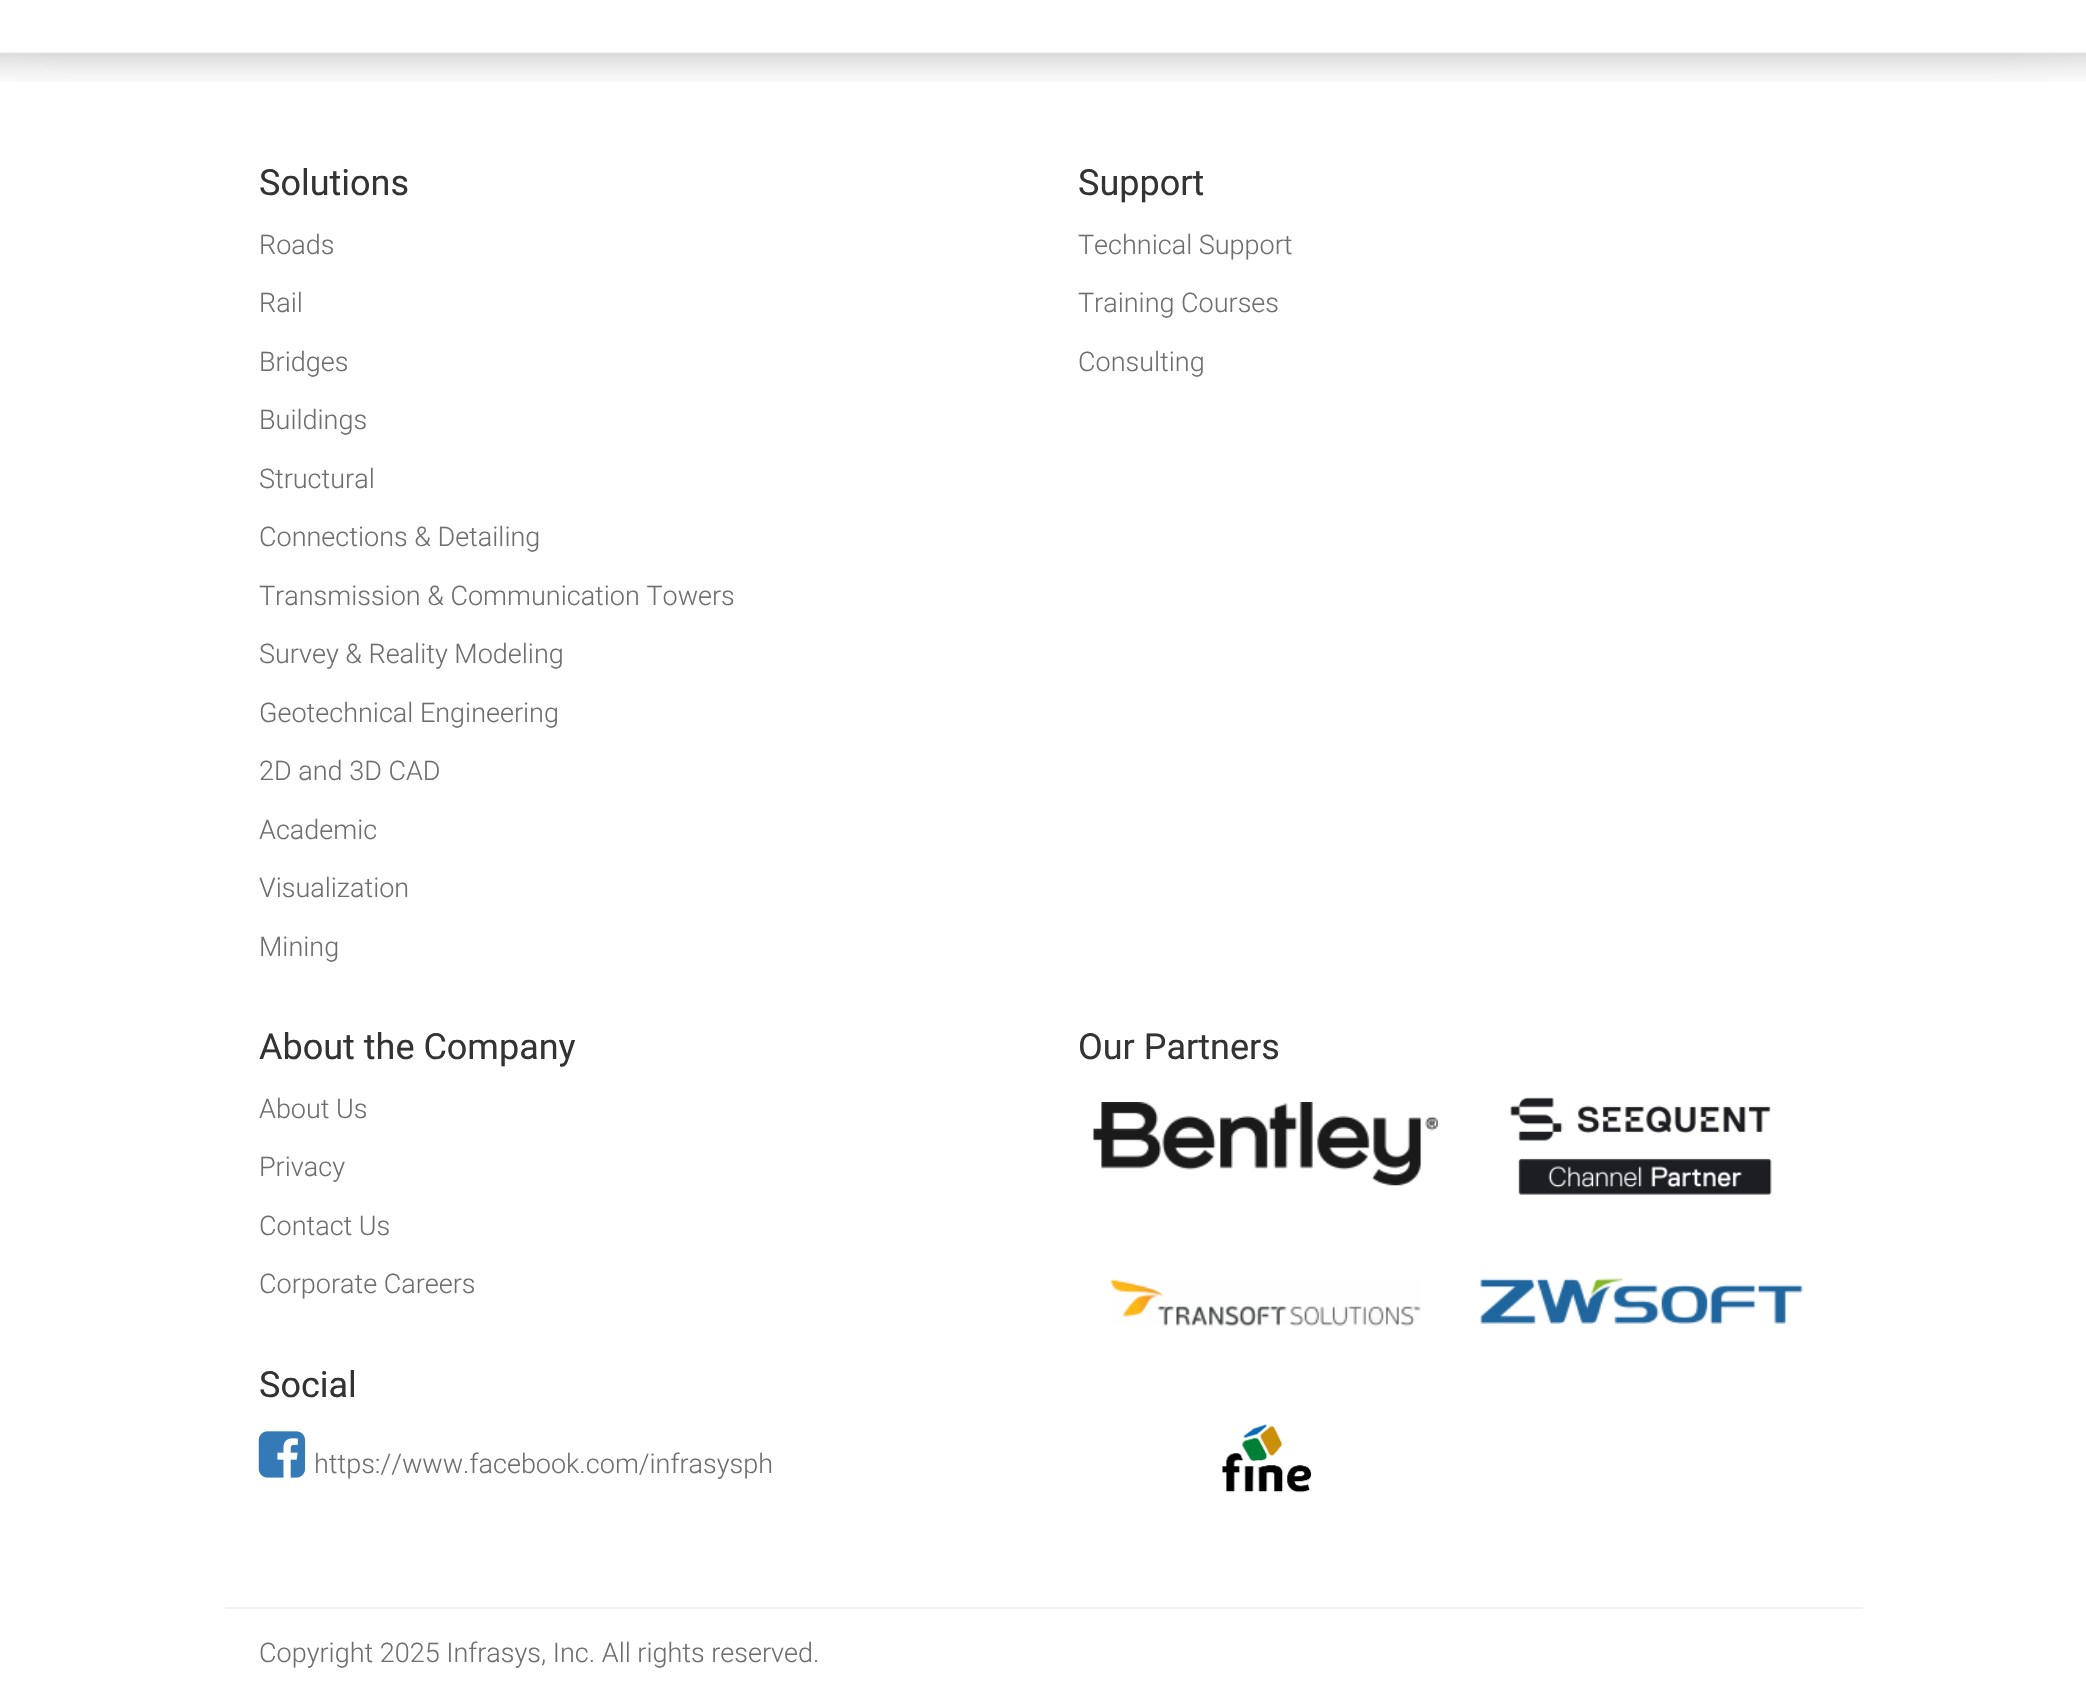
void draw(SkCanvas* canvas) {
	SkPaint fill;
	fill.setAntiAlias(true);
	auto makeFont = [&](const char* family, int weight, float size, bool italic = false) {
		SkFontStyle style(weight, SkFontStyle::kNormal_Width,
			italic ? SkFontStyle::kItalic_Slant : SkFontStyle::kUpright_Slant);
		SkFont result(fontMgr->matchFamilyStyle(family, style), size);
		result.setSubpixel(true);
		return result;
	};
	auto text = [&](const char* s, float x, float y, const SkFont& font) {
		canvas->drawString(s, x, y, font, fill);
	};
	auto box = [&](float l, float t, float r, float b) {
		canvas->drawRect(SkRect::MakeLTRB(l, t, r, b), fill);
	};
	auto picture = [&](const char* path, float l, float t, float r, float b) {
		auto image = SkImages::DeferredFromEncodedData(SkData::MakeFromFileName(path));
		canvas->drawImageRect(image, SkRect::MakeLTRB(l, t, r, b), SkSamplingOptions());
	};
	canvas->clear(0xFFFFFFFF);
	fill.setColor(0xFFF0F0F0);
	box(0, 52, 2086, 54);
	picture("image0.png", 0, 53, 2086, 82);
	picture("image1.png", 258, 1431, 306, 1478);
	picture("image2.png", 1093, 1102, 1438, 1186);
	picture("image3.png", 1510, 1097, 1772, 1195);
	picture("image4.png", 1110, 1278, 1421, 1326);
	picture("image5.png", 1480, 1278, 1803, 1324);
	picture("image6.png", 1222, 1424, 1312, 1493);
	box(225, 1607, 1863, 1609);
	auto font1 = makeFont("Roboto", 400, 36);
	fill.setColor(0xFF333333);
	text("Solutions", 259, 195, font1);
	auto font2 = makeFont("Roboto", 300, 27);
	fill.setColor(0xFF6E6E6E);
	text("Roads", 259, 254, font2);
	text("Rail", 259, 312, font2);
	text("Bridges", 259, 371, font2);
	text("Buildings", 259, 429, font2);
	text("Structural", 259, 488, font2);
	text("Connections & Detailing", 259, 546, font2);
	text("Transmission & Communication Towers", 259, 605, font2);
	text("Survey & Reality Modeling", 259, 663, font2);
	text("Geotechnical Engineering", 259, 722, font2);
	text("2D and 3D CAD", 259, 780, font2);
	text("Academic", 259, 839, font2);
	text("Visualization", 259, 897, font2);
	text("Mining", 259, 956, font2);
	fill.setColor(0xFF333333);
	text("Support", 1078, 195, font1);
	fill.setColor(0xFF6E6E6E);
	text("Technical Support", 1078, 254, font2);
	text("Training Courses", 1078, 312, font2);
	text("Consulting", 1078, 371, font2);
	fill.setColor(0xFF333333);
	text("About the Company", 259, 1059, font1);
	fill.setColor(0xFF6E6E6E);
	text("About Us", 259, 1118, font2);
	text("Privacy", 259, 1176, font2);
	text("Contact Us", 259, 1235, font2);
	text("Corporate Careers", 259, 1293, font2);
	fill.setColor(0xFF333333);
	text("Social", 259, 1397, font1);
	fill.setColor(0xFF6E6E6E);
	text("https://www.facebook.com/infrasysph", 314, 1473, font2);
	fill.setColor(0xFF333333);
	text("Our Partners", 1078, 1059, font1);
	fill.setColor(0xFF6E6E6E);
	text("Copyright 2025 Infrasys, Inc. All rights reserved.", 259, 1662, font2);
}
